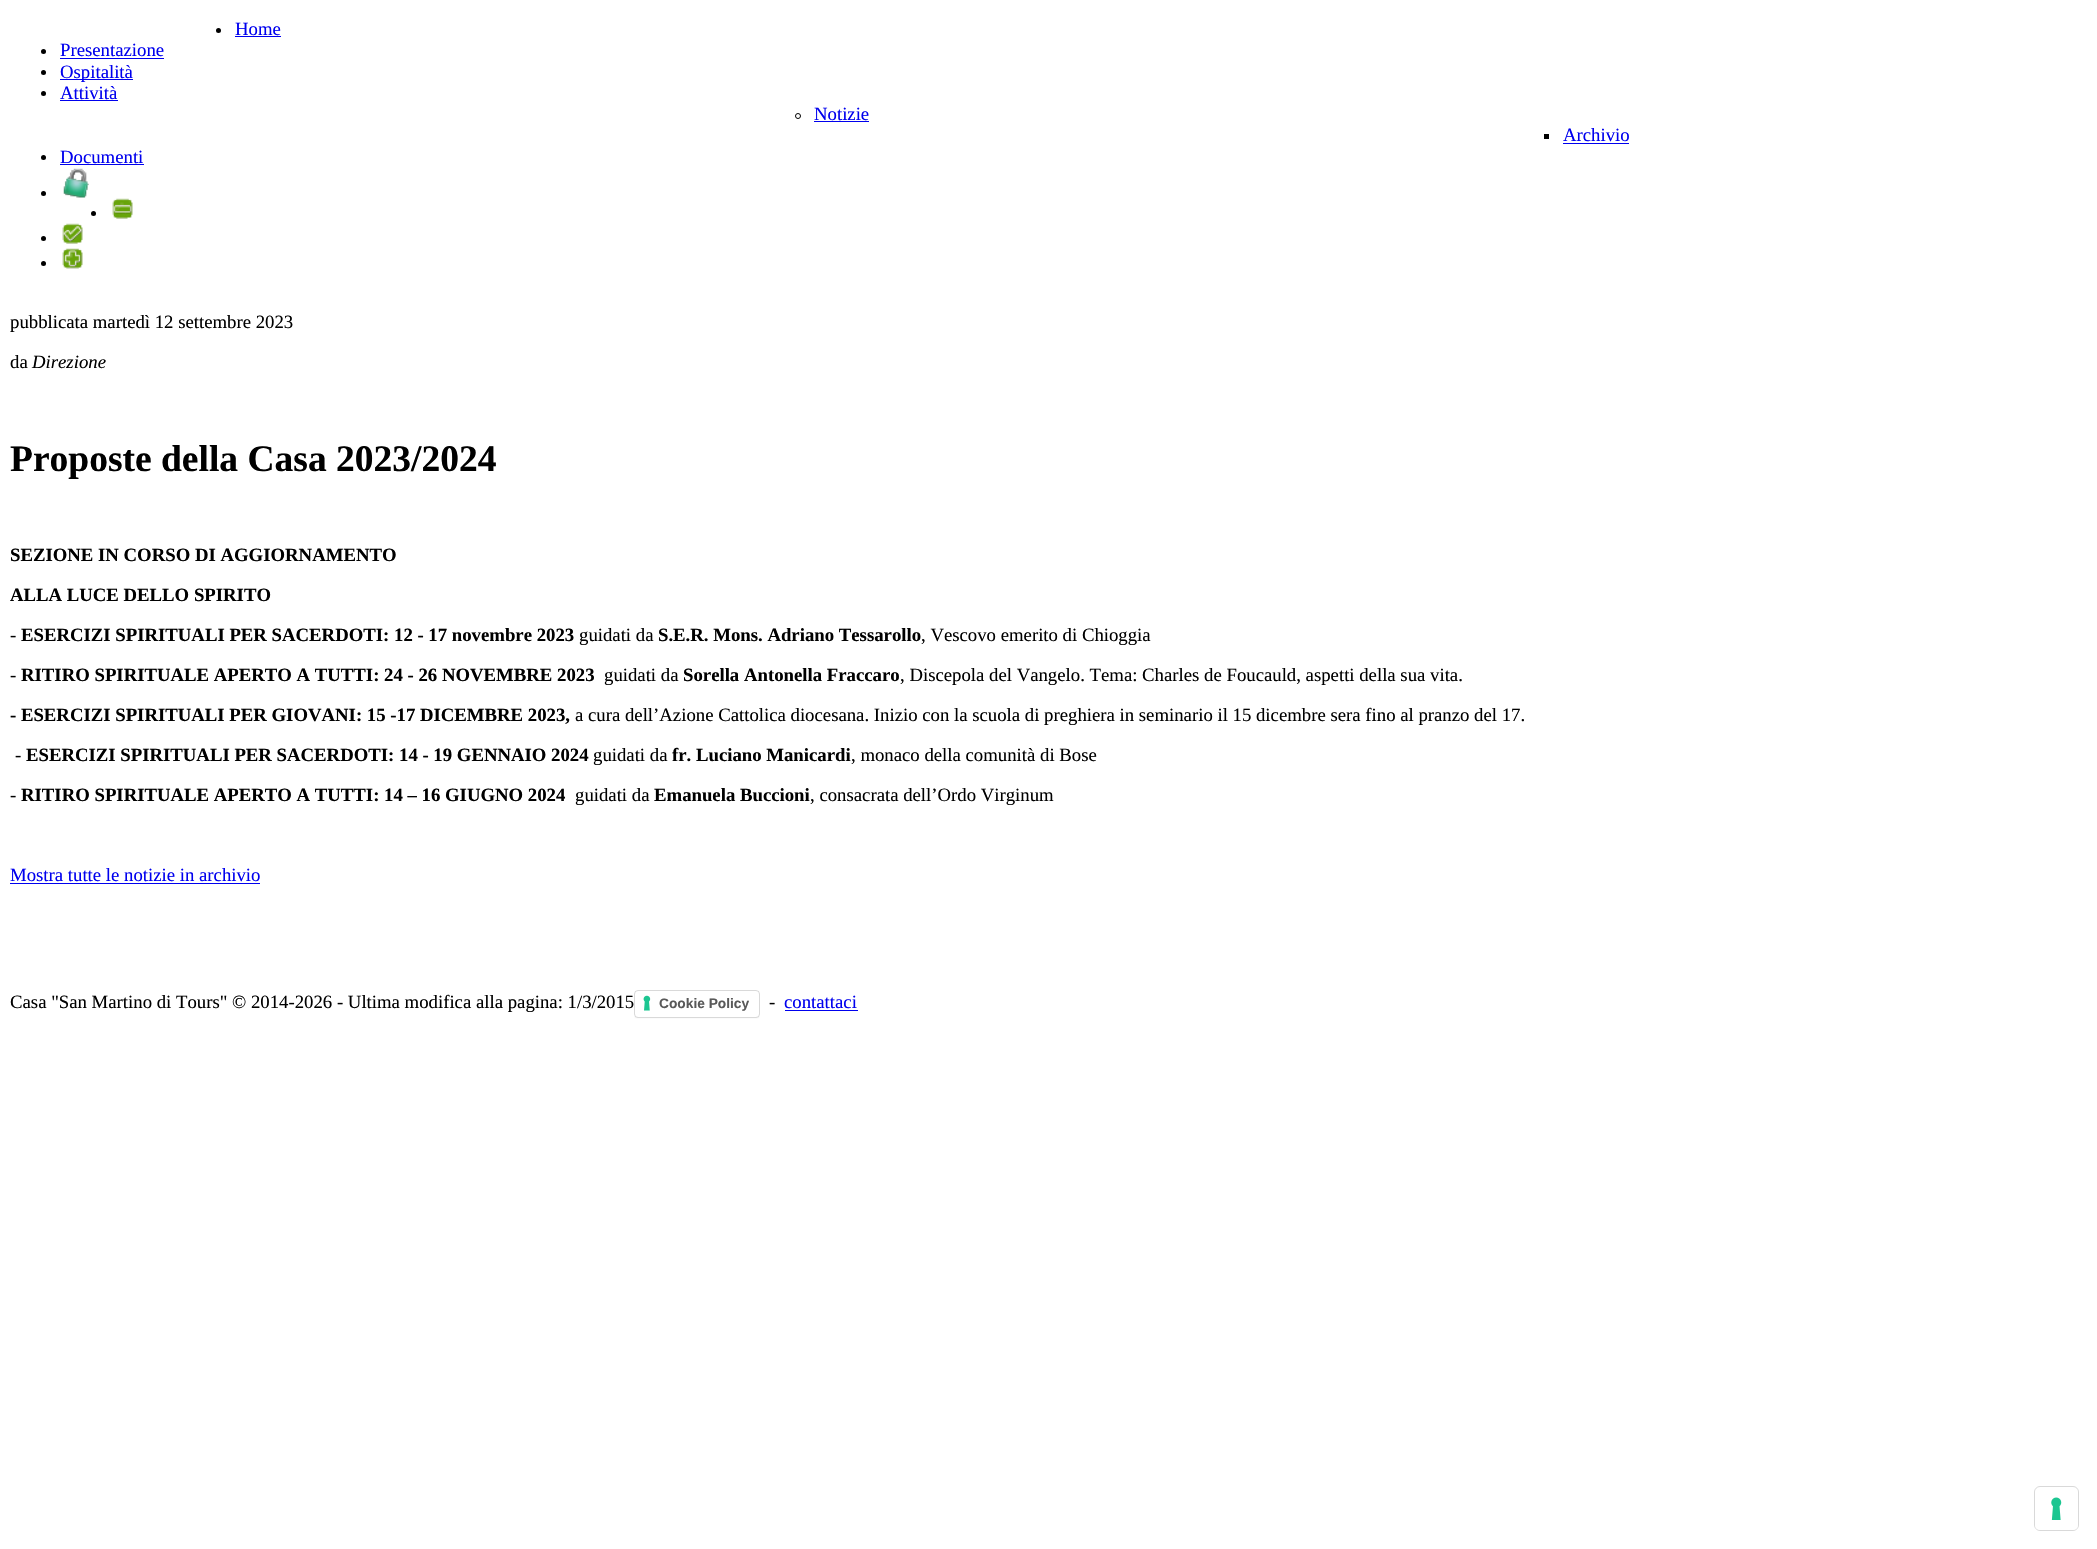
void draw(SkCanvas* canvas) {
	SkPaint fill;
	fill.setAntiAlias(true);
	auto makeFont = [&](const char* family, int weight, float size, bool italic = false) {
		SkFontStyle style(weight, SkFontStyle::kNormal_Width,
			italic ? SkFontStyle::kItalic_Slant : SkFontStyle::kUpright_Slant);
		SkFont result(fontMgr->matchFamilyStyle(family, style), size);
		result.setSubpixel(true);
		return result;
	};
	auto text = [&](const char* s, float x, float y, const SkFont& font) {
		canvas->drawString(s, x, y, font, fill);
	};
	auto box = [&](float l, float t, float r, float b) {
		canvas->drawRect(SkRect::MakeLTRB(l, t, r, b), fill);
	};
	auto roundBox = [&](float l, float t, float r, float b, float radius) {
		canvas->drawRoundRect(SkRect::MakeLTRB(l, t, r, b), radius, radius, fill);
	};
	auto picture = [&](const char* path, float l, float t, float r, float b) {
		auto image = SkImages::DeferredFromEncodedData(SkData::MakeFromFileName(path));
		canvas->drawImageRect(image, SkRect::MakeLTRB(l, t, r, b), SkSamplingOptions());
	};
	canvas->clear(0xFFFFFFFF);
	fill.setColor(0xFF000000);
	canvas->drawCircle(218.5f, 30.5f, 2.5f, fill);
	fill.setColor(0xFF0000EE);
	box(235, 36, 281, 37);
	fill.setColor(0xFF000000);
	canvas->drawCircle(43.5f, 51.5f, 2.5f, fill);
	fill.setColor(0xFF0000EE);
	box(60, 58, 164, 59);
	fill.setColor(0xFF000000);
	canvas->drawCircle(43.5f, 72.5f, 2.5f, fill);
	fill.setColor(0xFF0000EE);
	box(60, 79, 133, 80);
	fill.setColor(0xFF000000);
	canvas->drawCircle(43.5f, 93.5f, 2.5f, fill);
	fill.setColor(0xFF0000EE);
	box(60, 100, 118, 101);
	fill.setStyle(SkPaint::kStroke_Style);
	fill.setStrokeWidth(1);
	fill.setColor(0xFF000000);
	canvas->drawCircle(798, 116, 2.5f, fill);
	fill.setStyle(SkPaint::kFill_Style);
	fill.setColor(0xFF0000EE);
	box(814, 121, 869, 122);
	fill.setColor(0xFF000000);
	box(1544, 134, 1549, 139);
	fill.setColor(0xFF0000EE);
	box(1563, 143, 1629, 144);
	fill.setColor(0xFF000000);
	canvas->drawCircle(43.5f, 157.5f, 2.5f, fill);
	fill.setColor(0xFF0000EE);
	box(60, 164, 144, 165);
	fill.setColor(0xFF000000);
	canvas->drawCircle(43.5f, 193.5f, 2.5f, fill);
	picture("image0.png", 63, 168, 89, 198);
	canvas->drawCircle(93.5f, 213.5f, 2.5f, fill);
	picture("image1.png", 112, 198, 133, 219);
	canvas->drawCircle(43.5f, 238.5f, 2.5f, fill);
	picture("image2.png", 62, 223, 83, 244);
	canvas->drawCircle(43.5f, 263.5f, 2.5f, fill);
	picture("image3.png", 62, 248, 83, 269);
	fill.setColor(0xFF0000EE);
	box(10, 883, 260, 884);
	fill.setColor(0x26000000);
	fill.setMaskFilter(SkMaskFilter::MakeBlur(kNormal_SkBlurStyle, 0.5f));
	canvas->drawRoundRect(SkRect::MakeLTRB(635, 993, 759, 1018), 2.5f, 2.5f, fill);
	fill.setMaskFilter(nullptr);
	fill.setColor(0xFFFFFFFF);
	roundBox(634, 990, 760, 1018, 4);
	picture("image4.png", 643, 995, 651, 1011);
	fill.setStyle(SkPaint::kStroke_Style);
	fill.setColor(0x26000000);
	canvas->drawRoundRect(SkRect::MakeLTRB(634.5f, 990.5f, 759.5f, 1017.5f), 3.5f, 3.5f, fill);
	fill.setStyle(SkPaint::kFill_Style);
	fill.setColor(0xFF0000EE);
	box(785, 1010, 858, 1011);
	fill.setStyle(SkPaint::kStroke_Style);
	fill.setColor(0xFFD9D9D9);
	canvas->drawRoundRect(SkRect::MakeLTRB(2034.5f, 1486.5f, 2078.5f, 1530.5f), 5.5f, 5.5f, fill);
	fill.setStyle(SkPaint::kFill_Style);
	fill.setColor(0xFFFFFFFF);
	roundBox(2035, 1488, 2078, 1530, 5);
	picture("image5.png", 2051, 1497, 2062, 1520);
	auto font1 = makeFont("Liberation Serif", 400, 18.75f);
	fill.setColor(0xFF0000EE);
	text("Home", 235, 35, font1);
	text("Presentazione", 60, 56, font1);
	text("Ospitalità", 60, 78, font1);
	text("Attività", 60, 99, font1);
	text("Notizie", 814, 120, font1);
	text("Archivio", 1563, 141, font1);
	text("Documenti", 60, 163, font1);
	fill.setColor(0xFF000000);
	text("pubblicata martedì 12 settembre 2023", 10, 328, font1);
	text("da", 10, 368, font1);
	auto font2 = makeFont("Liberation Serif", 400, 18.75f, true);
	text("Direzione", 32, 368, font2);
	auto font3 = makeFont("Liberation Serif", 700, 37.5f);
	text("Proposte della Casa 2023/2024", 10, 471, font3);
	auto font4 = makeFont("Liberation Serif", 700, 18.75f);
	text("SEZIONE IN CORSO DI AGGIORNAMENTO", 10, 561, font4);
	text("ALLA LUCE DELLO SPIRITO", 10, 601, font4);
	text("-", 10, 641, font1);
	text("ESERCIZI SPIRITUALI PER SACERDOTI: 12 - 17 novembre 2023", 21, 641, font4);
	text("guidati da", 579, 641, font1);
	text("S.E.R. Mons. Adriano Tessarollo", 658, 641, font4);
	text(", Vescovo emerito di Chioggia", 921, 641, font1);
	text("-", 10, 681, font1);
	text("RITIRO SPIRITUALE APERTO A TUTTI: 24 - 26 NOVEMBRE 2023", 21, 681, font4);
	text("guidati da", 604, 681, font1);
	text("Sorella Antonella Fraccaro", 683, 681, font4);
	text(", Discepola del Vangelo. Tema: Charles de Foucauld, aspetti della sua vita.", 900, 681, font1);
	text("- ESERCIZI SPIRITUALI PER GIOVANI: 15 -17 DICEMBRE 2023,", 10, 721, font4);
	text("a cura dell’Azione Cattolica diocesana. Inizio con la scuola di preghiera in seminario il 15 dicembre sera fino al pranzo del 17.", 575, 721, font1);
	text("-", 15, 761, font1);
	text("ESERCIZI SPIRITUALI PER SACERDOTI: 14 - 19 GENNAIO 2024", 26, 761, font4);
	text("guidati da", 593, 761, font1);
	text("fr. Luciano Manicardi", 672, 761, font4);
	text(", monaco della comunità di Bose", 851, 761, font1);
	text("-", 10, 801, font1);
	text("RITIRO SPIRITUALE APERTO A TUTTI: 14 – 16 GIUGNO 2024", 21, 801, font4);
	text("guidati da", 575, 801, font1);
	text("Emanuela Buccioni", 654, 801, font4);
	text(", consacrata dell’Ordo Virginum", 810, 801, font1);
	fill.setColor(0xFF0000EE);
	text("Mostra tutte le notizie in archivio", 10, 881, font1);
	fill.setColor(0xFF000000);
	text("Casa \"San Martino di Tours\" © 2014-2026 - Ultima modifica alla pagina: 1/3/2015", 10, 1008, font1);
	auto font5 = makeFont("Liberation Sans", 700, 13.75f);
	fill.setColor(0xFF595959);
	text("Cookie Policy", 659, 1008, font5);
	fill.setColor(0xFF000000);
	text("-", 769, 1008, font1);
	fill.setColor(0xFF0000EE);
	text("contattaci", 784, 1008, font1);
}
